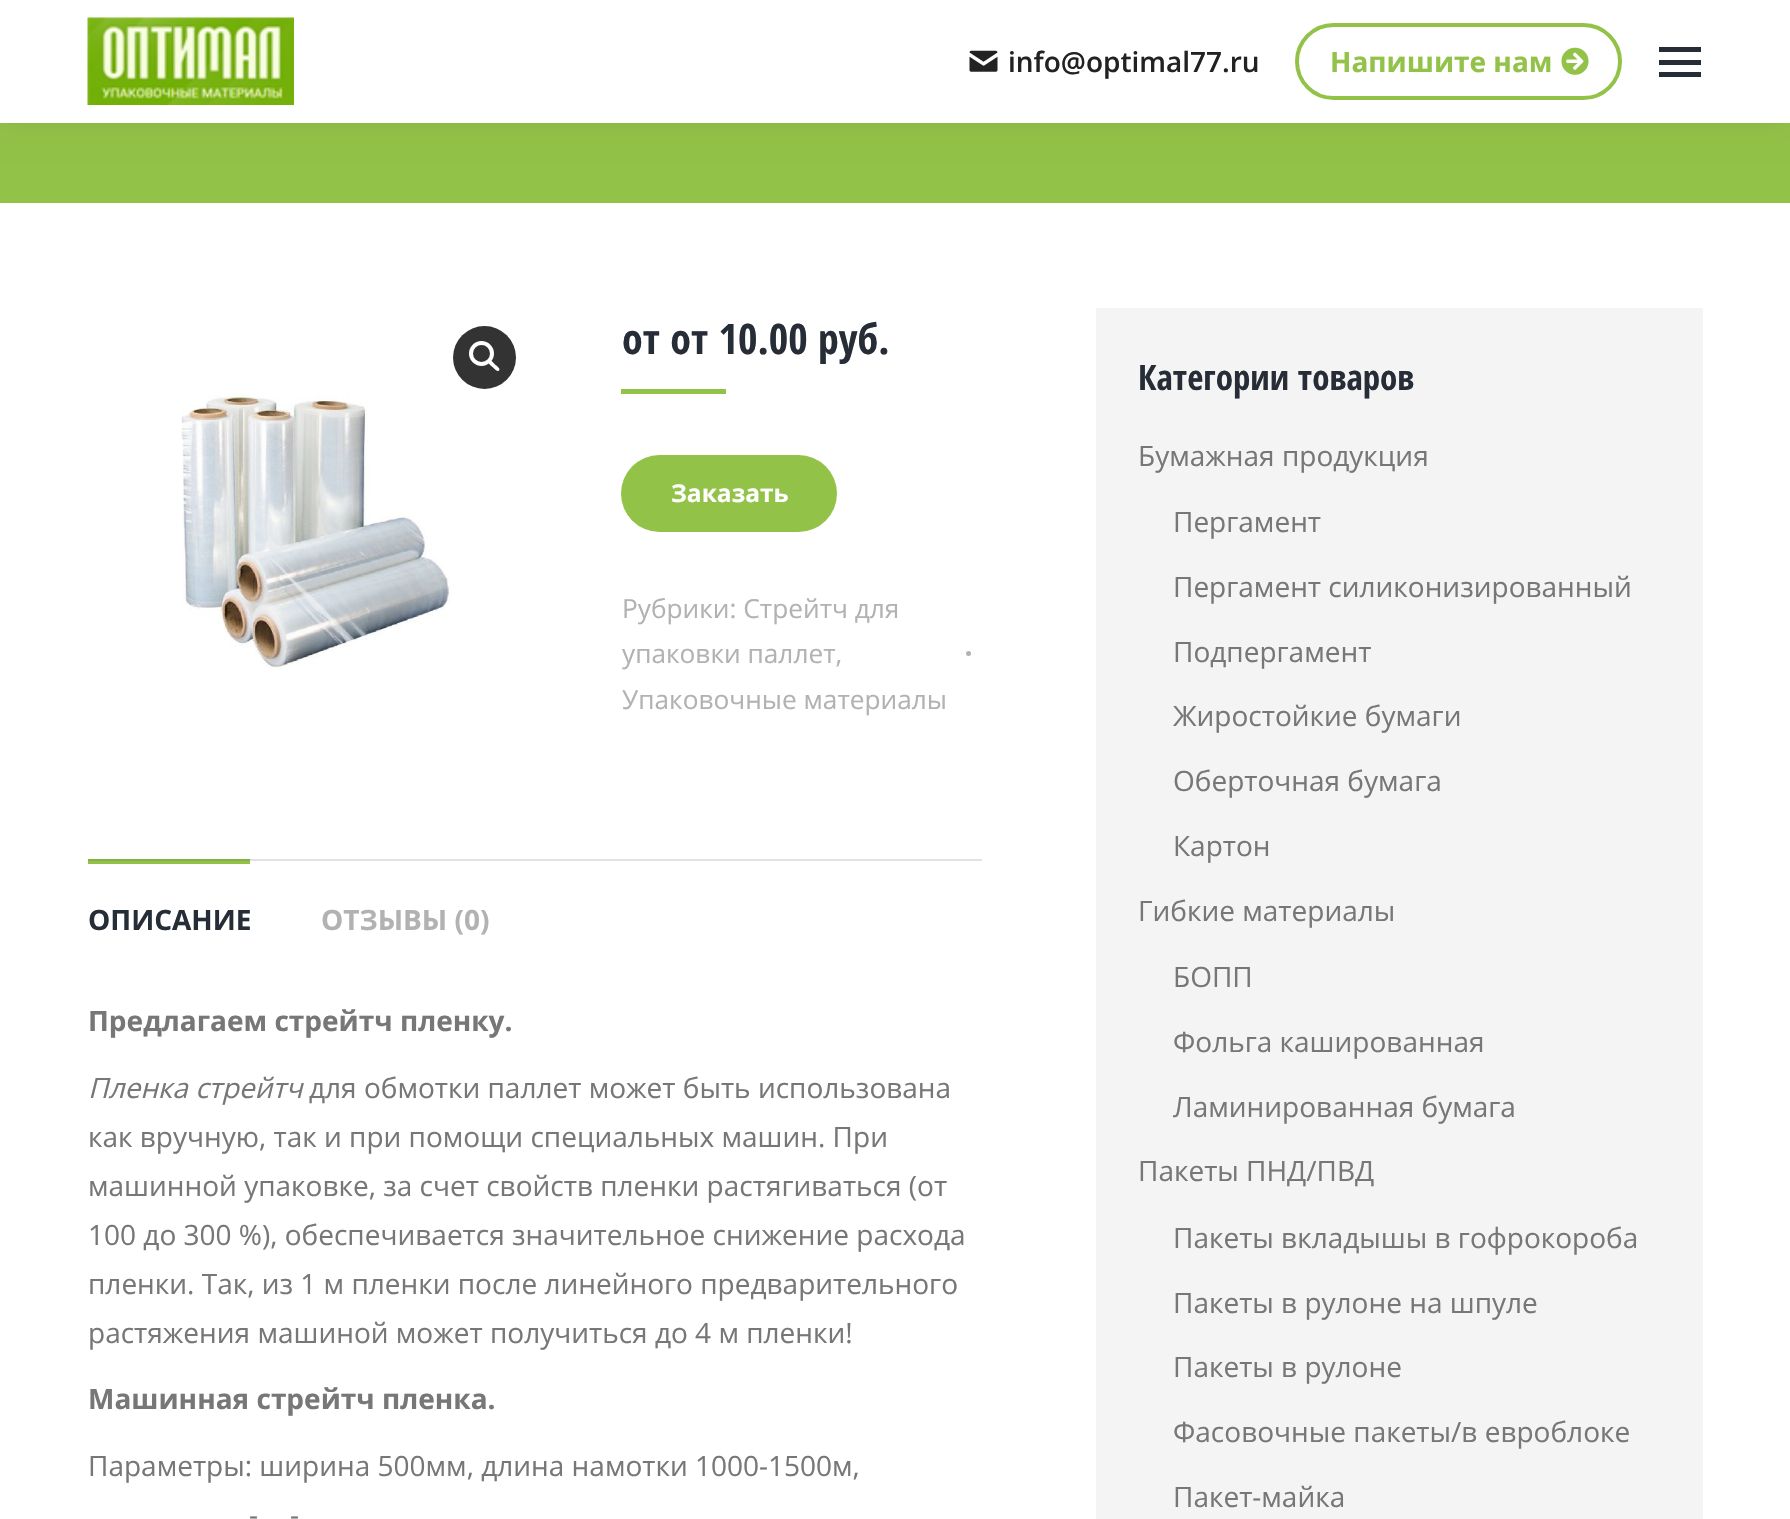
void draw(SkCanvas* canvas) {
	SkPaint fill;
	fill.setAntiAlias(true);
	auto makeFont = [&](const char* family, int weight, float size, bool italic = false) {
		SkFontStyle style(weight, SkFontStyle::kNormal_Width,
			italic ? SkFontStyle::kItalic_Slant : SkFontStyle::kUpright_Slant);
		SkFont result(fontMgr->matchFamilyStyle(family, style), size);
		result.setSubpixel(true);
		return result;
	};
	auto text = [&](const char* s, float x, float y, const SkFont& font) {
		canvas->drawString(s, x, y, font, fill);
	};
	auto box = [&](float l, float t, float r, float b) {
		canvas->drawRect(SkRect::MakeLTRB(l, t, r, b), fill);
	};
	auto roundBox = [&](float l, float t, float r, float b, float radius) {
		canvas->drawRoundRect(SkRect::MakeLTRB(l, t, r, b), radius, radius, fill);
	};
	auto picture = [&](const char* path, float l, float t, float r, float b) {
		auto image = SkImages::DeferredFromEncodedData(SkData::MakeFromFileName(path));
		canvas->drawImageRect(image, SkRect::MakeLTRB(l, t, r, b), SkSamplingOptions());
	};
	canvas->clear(0xFFFFFFFF);
	fill.setColor(0xFFE2E2E2);
	box(250, 859, 982, 861);
	fill.setColor(0xFF93C248);
	box(0, 123, 1790, 203);
	fill.setColor(0x12000000);
	fill.setMaskFilter(SkMaskFilter::MakeBlur(kNormal_SkBlurStyle, 13));
	canvas->drawRect(SkRect::MakeLTRB(-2, -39, 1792, 124), fill);
	fill.setMaskFilter(nullptr);
	fill.setColor(0xFFFFFFFF);
	box(0, 0, 1790, 123);
	picture("image0.png", 87, 17, 294, 105);
	picture("image1.png", 969, 50, 998, 72);
	fill.setStyle(SkPaint::kStroke_Style);
	fill.setStrokeWidth(4);
	fill.setColor(0xFF93C248);
	canvas->drawRoundRect(SkRect::MakeLTRB(1297, 25, 1620, 98), 36.5f, 36.5f, fill);
	picture("image2.png", 1561, 47, 1589, 75);
	fill.setStyle(SkPaint::kFill_Style);
	fill.setColor(0xFF262D37);
	box(1659, 47, 1701, 52);
	box(1659, 60, 1701, 65);
	box(1659, 72, 1701, 77);
	fill.setColor(0xFF333333);
	canvas->drawCircle(484.5f, 357.5f, 31.5f, fill);
	fill.setStyle(SkPaint::kStroke_Style);
	fill.setColor(0xFFFFFFFF);
	canvas->drawCircle(481.5f, 353.5f, 10.5f, fill);
	fill.setStyle(SkPaint::kFill_Style);
	canvas->drawPath(SkPathBuilder().moveTo(489, 361).cubicTo(491, 359, 494, 363.5f, 495, 364.5f).cubicTo(496, 365.5f, 501, 368.5f, 499, 370.5f).cubicTo(497, 372.5f, 494, 368, 492.5f, 367).cubicTo(491.5f, 366, 487, 363, 489, 361).close().detach(), fill);
	picture("image3.png", 181, 394, 451, 670);
	fill.setColor(0xFF93C248);
	box(621, 389, 726, 394);
	roundBox(621, 455, 837, 532, 38.5f);
	fill.setColor(0xFFB2B2B2);
	canvas->drawCircle(968.5f, 653.5f, 2.5f, fill);
	fill.setColor(0xFF93C248);
	box(88, 861, 250, 864);
	fill.setColor(0xFF86AE45);
	box(88, 859, 250, 861);
	fill.setColor(0xFFF4F4F4);
	roundBox(1096, 308, 1703, 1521, 2);
	auto font1 = makeFont("Open Sans", 600, 28);
	fill.setColor(0xFF222222);
	text("info@optimal77.ru", 1008, 72, font1);
	auto font2 = makeFont("Open Sans", 700, 28);
	fill.setColor(0xFF93C248);
	text("Напишите нам", 1330, 72, font2);
	auto font3 = makeFont("Open Sans Condensed", 700, 42);
	fill.setColor(0xFF262D37);
	text("от от 10.00", 622, 354, font3);
	text("руб.", 818, 354, font3);
	auto font4 = makeFont("Open Sans", 700, 24.5f);
	fill.setColor(0xFFFFFFFF);
	text("Заказать", 671, 502, font4);
	auto font5 = makeFont("Open Sans", 400, 26.25f);
	fill.setColor(0xFFB2B2B2);
	text("Рубрики: Стрейтч для", 622, 618, font5);
	text("упаковки паллет,", 622, 663, font5);
	text("Упаковочные материалы", 622, 709, font5);
	fill.setColor(0xFF262D37);
	text("ОПИСАНИЕ", 88, 930, font2);
	fill.setColor(0xFFB2B2B2);
	text("ОТЗЫВЫ (0)", 321, 930, font2);
	fill.setColor(0xFF777777);
	text("Предлагаем стрейтч пленку.", 88, 1031, font2);
	auto font6 = makeFont("Open Sans", 400, 28, true);
	text("Пленка стрейтч", 88, 1098, font6);
	auto font7 = makeFont("Open Sans", 400, 28);
	text("для обмотки паллет может быть использована", 309, 1098, font7);
	text("как вручную, так и при помощи специальных машин. При", 88, 1147, font7);
	text("машинной упаковке, за счет свойств пленки растягиваться (от", 88, 1196, font7);
	text("100 до 300 %), обеспечивается значительное снижение расхода", 88, 1245, font7);
	text("пленки. Так, из 1 м пленки после линейного предварительного", 88, 1294, font7);
	text("растяжения машиной может получиться до 4 м пленки!", 88, 1343, font7);
	text("Машинная стрейтч пленка.", 88, 1409, font2);
	text("Параметры: ширина 500мм, длина намотки 1000-1500м,", 88, 1476, font7);
	text("-", 249, 1525, font7);
	text("-", 290, 1525, font7);
	auto font8 = makeFont("Open Sans Condensed", 700, 35);
	fill.setColor(0xFF262D37);
	text("Категории товаров", 1138, 390, font8);
	fill.setColor(0xFF777777);
	text("Бумажная продукция", 1138, 466, font7);
	text("Пергамент", 1173, 532, font7);
	text("Пергамент силиконизированный", 1173, 597, font7);
	text("Подпергамент", 1173, 662, font7);
	text("Жиростойкие бумаги", 1173, 726, font7);
	text("Оберточная бумага", 1173, 791, font7);
	text("Картон", 1173, 856, font7);
	text("Гибкие материалы", 1138, 921, font7);
	text("БОПП", 1173, 987, font7);
	text("Фольга кашированная", 1173, 1052, font7);
	text("Ламинированная бумага", 1173, 1117, font7);
	text("Пакеты ПНД/ПВД", 1138, 1181, font7);
	text("Пакеты вкладышы в гофрокороба", 1173, 1248, font7);
	text("Пакеты в рулоне на шпуле", 1173, 1313, font7);
	text("Пакеты в рулоне", 1173, 1377, font7);
	text("Фасовочные пакеты/в евроблоке", 1173, 1442, font7);
	text("Пакет-майка", 1173, 1507, font7);
}
